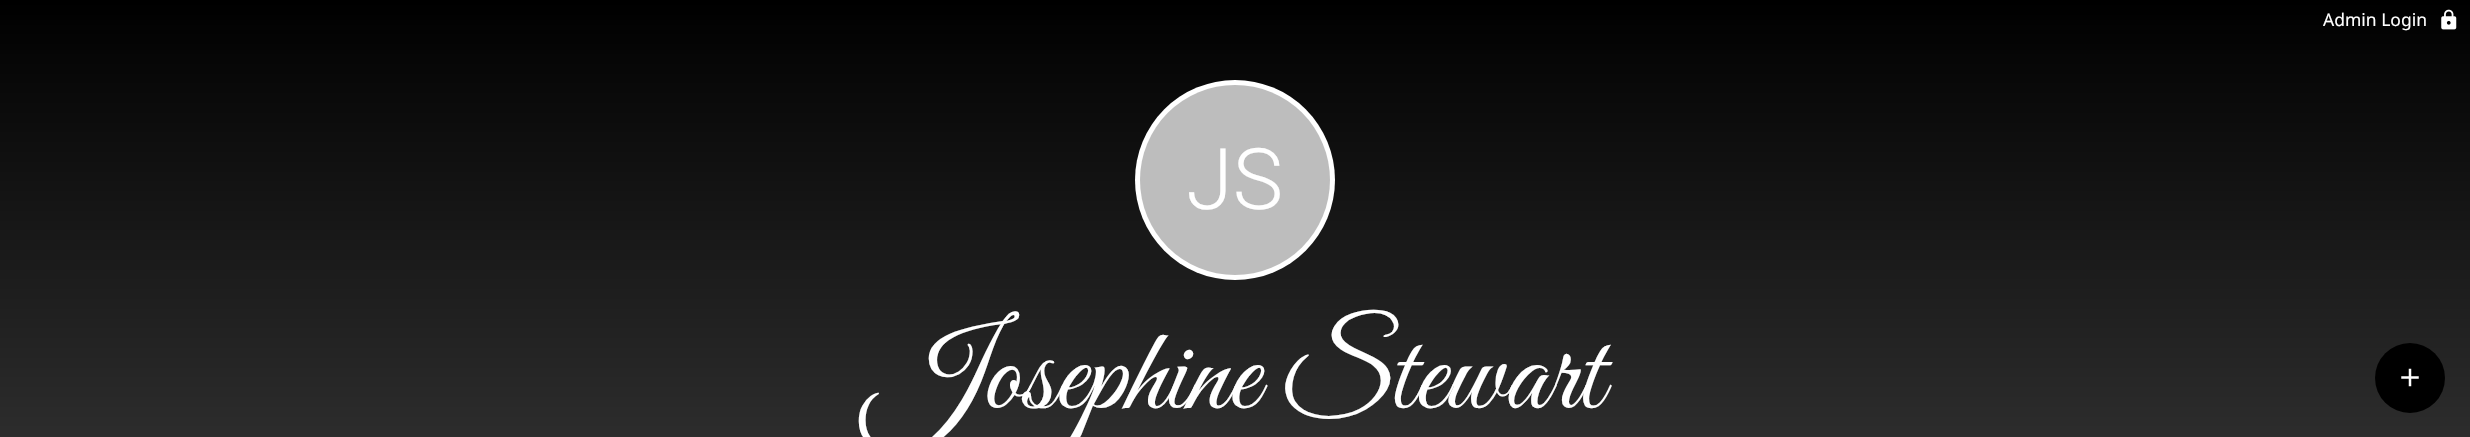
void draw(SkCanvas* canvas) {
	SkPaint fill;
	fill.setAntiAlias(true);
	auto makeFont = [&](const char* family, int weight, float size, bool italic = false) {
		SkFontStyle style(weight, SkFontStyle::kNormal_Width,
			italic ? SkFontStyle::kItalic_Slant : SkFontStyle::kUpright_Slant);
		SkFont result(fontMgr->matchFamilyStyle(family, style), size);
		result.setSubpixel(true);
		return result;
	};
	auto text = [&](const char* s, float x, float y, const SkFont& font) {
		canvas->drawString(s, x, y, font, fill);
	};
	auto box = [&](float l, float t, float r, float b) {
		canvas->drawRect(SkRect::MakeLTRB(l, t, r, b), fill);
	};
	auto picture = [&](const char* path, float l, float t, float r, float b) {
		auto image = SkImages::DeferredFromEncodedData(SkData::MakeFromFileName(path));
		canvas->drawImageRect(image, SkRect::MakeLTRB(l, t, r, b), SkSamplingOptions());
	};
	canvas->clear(0xFFFFFFFF);
	{
		const SkColor colors[] = {0xFF000000, 0xFF333333};
		const float stops[] = {0, 1};
		const SkPoint ends[] = {{1235, 0}, {1235, 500}};
		fill.setShader(SkGradientShader::MakeLinear(ends, colors, stops, 2, SkTileMode::kClamp));
		fill.setAlpha(255);
	}
	box(0, 0, 2470, 437);
	picture("image0.png", 2441, 9, 2457, 30);
	fill.setShader(nullptr);
	fill.setColor(0xFFFFFFFF);
	canvas->drawCircle(1235, 180, 100, fill);
	fill.setColor(0xFFBDBDBD);
	canvas->drawCircle(1235, 180, 95, fill);
	fill.setColor(0xFF000000);
	canvas->drawCircle(2410, 378, 35, fill);
	picture("image1.png", 2401, 368, 2419, 387);
	auto font1 = makeFont("Noto Sans", 400, 17.5f);
	fill.setColor(0xFFFFFFFF);
	text("Admin Login", 2323, 26, font1);
	auto font2 = makeFont("Roboto", 300, 85);
	text("JS", 1186, 209, font2);
	auto font3 = makeFont("Great Vibes", 400, 120);
	text("Josephine Stewart", 866, 408, font3);
}
